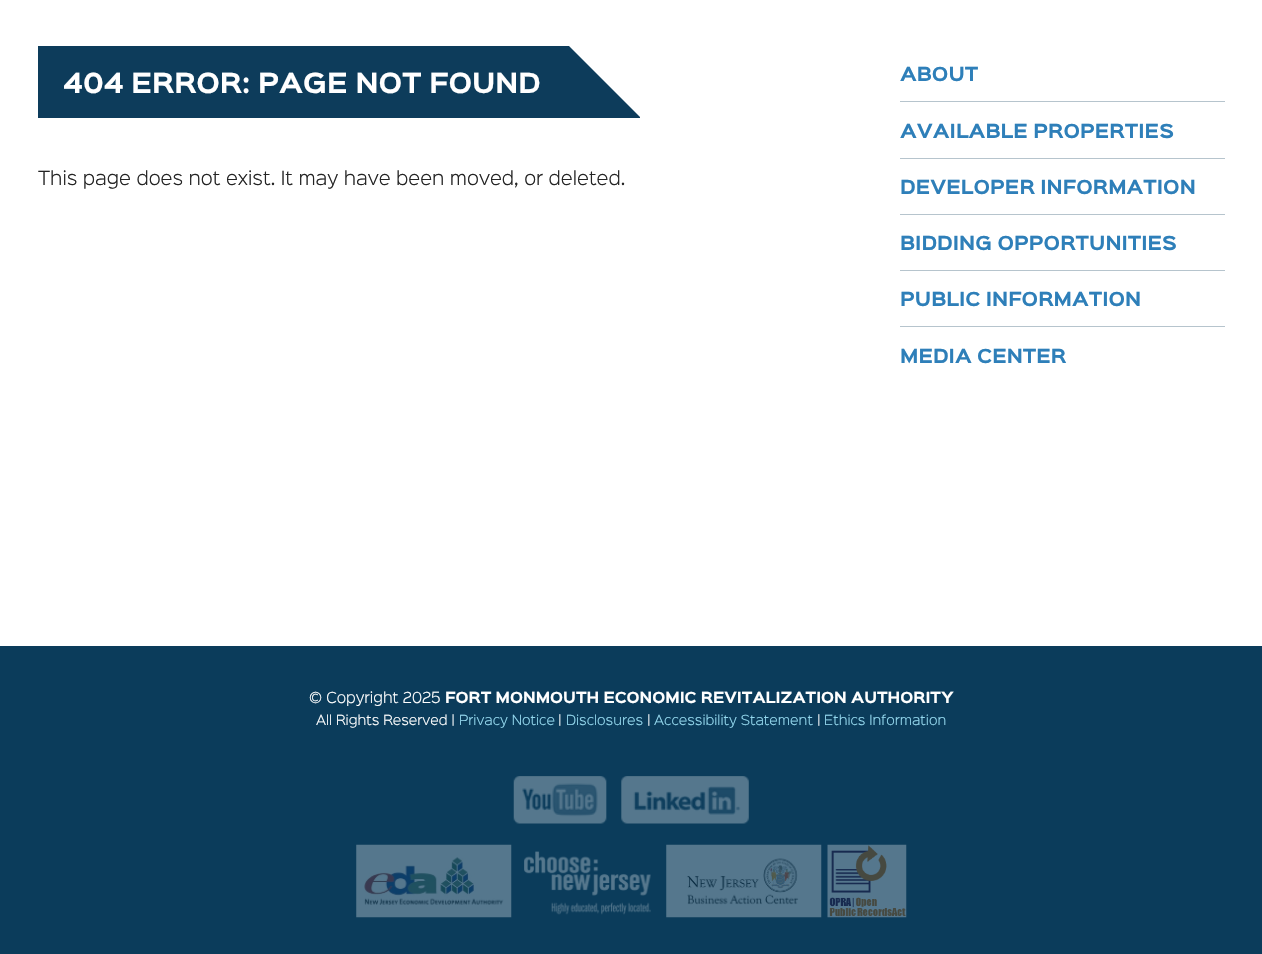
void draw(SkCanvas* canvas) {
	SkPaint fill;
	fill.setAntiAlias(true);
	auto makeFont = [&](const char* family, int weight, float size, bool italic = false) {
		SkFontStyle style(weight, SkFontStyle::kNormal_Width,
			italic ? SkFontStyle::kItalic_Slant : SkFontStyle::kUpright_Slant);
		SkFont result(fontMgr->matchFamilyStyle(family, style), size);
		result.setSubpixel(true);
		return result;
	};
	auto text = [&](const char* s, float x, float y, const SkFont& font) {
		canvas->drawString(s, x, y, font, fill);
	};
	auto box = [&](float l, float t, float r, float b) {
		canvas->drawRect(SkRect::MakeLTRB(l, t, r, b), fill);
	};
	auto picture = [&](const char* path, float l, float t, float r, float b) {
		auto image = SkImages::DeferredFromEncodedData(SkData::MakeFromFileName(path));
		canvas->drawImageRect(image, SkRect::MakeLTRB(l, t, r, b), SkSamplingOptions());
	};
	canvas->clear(0xFF0B3C5B);
	fill.setColor(0xFFFFFFFF);
	box(0, 0, 1262, 646);
	fill.setColor(0xFF0D3C5B);
	box(38, 46, 640, 118);
	canvas->save();
	canvas->clipRect(SkRect::MakeLTRB(38, 46, 640, 118));
	fill.setColor(0xFFFFFFFF);
	canvas->drawPath(SkPathBuilder().moveTo(264, -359).lineTo(691, 67).lineTo(640, 117).lineTo(214, -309).close().detach(), fill);
	canvas->restore();
	fill.setColor(0xFFB6C4CD);
	box(900, 101, 1225, 102);
	box(900, 158, 1225, 159);
	box(900, 214, 1225, 215);
	box(900, 270, 1225, 271);
	box(900, 326, 1225, 327);
	picture("image0.png", 513, 776, 607, 824);
	picture("image1.png", 621, 776, 749, 824);
	picture("image2.png", 356, 844, 512, 918);
	picture("image3.png", 524, 851, 651, 915);
	picture("image4.png", 666, 844, 822, 918);
	picture("image5.png", 827, 844, 907, 918);
	auto font1 = makeFont("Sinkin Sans", 700, 25);
	fill.setColor(0xFFFFFFFF);
	text("404 ERROR: PAGE NOT FOUND", 63, 93, font1);
	auto font2 = makeFont("Sinkin Sans", 300, 17.5f);
	fill.setColor(0xFF242424);
	text("This page does not exist. It may have been moved, or deleted.", 38, 185, font2);
	auto font3 = makeFont("Sinkin Sans", 700, 17.5f);
	fill.setColor(0xFF2E7FB9);
	text("ABOUT", 900, 81, font3);
	text("AVAILABLE PROPERTIES", 900, 138, font3);
	text("DEVELOPER INFORMATION", 900, 194, font3);
	text("BIDDING OPPORTUNITIES", 900, 250, font3);
	text("PUBLIC INFORMATION", 900, 306, font3);
	text("MEDIA CENTER", 900, 363, font3);
	auto font4 = makeFont("Sinkin Sans", 300, 13.75f);
	fill.setColor(0xFFFFFFFF);
	text("© Copyright 2025", 309, 703, font4);
	auto font5 = makeFont("Sinkin Sans", 700, 13.75f);
	text("FORT MONMOUTH ECONOMIC REVITALIZATION AUTHORITY", 445, 703, font5);
	auto font6 = makeFont("Sinkin Sans", 300, 12.5f);
	text("All Rights Reserved |", 316, 725, font6);
	fill.setColor(0xFF94D8EE);
	text("Privacy Notice", 459, 725, font6);
	fill.setColor(0xFFFFFFFF);
	text("|", 558, 725, font6);
	fill.setColor(0xFF94D8EE);
	text("Disclosures", 566, 725, font6);
	fill.setColor(0xFFFFFFFF);
	text("|", 647, 725, font6);
	fill.setColor(0xFF94D8EE);
	text("Accessibility Statement", 654, 725, font6);
	fill.setColor(0xFFFFFFFF);
	text("|", 817, 725, font6);
	fill.setColor(0xFF94D8EE);
	text("Ethics Information", 824, 725, font6);
}
